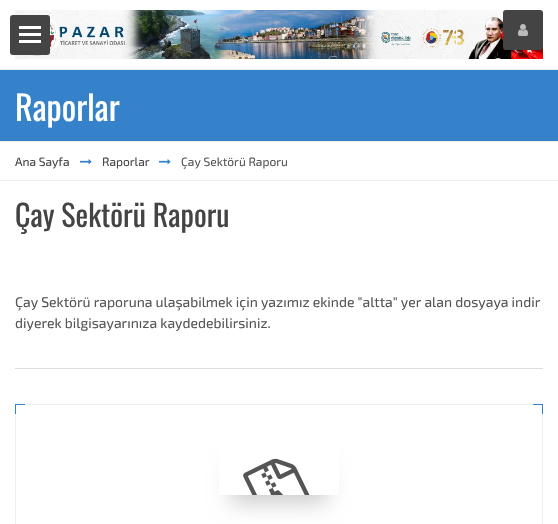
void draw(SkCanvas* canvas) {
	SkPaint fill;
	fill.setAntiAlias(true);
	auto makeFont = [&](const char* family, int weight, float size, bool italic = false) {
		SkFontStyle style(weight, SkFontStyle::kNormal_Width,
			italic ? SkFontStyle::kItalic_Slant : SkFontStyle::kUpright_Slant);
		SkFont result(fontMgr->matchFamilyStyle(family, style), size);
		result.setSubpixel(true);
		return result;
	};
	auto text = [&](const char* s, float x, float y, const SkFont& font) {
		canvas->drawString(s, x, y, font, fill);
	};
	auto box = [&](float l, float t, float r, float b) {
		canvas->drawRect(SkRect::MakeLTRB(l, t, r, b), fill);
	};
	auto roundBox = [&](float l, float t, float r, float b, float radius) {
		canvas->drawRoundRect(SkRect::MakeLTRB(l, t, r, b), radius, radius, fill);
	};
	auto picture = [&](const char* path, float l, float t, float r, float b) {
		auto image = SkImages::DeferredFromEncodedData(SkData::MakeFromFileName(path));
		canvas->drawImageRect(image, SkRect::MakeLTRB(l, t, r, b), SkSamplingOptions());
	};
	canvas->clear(0xFFFFFFFF);
	picture("image0.png", 15, 10, 543, 59);
	fill.setColor(0xFF444444);
	roundBox(503, 10, 543, 50, 3);
	picture("image1.png", 518, 24, 528, 36);
	roundBox(10, 15, 50, 55, 3);
	fill.setColor(0xFFFFFFFF);
	box(19, 26, 41, 29);
	box(19, 33, 41, 36);
	box(19, 40, 41, 43);
	fill.setColor(0xFF3582CA);
	box(0, 70, 558, 141);
	fill.setColor(0xFFEEEEEE);
	box(0, 69, 558, 70);
	box(0, 141, 558, 142);
	box(0, 180, 558, 181);
	picture("image2.png", 80, 159, 92, 165);
	picture("image2.png", 159, 159, 171, 165);
	fill.setColor(0xFFDDDDDD);
	box(15, 368, 543, 369);
	fill.setStyle(SkPaint::kStroke_Style);
	fill.setStrokeWidth(1);
	fill.setColor(0xFFEEEEEE);
	canvas->drawRect(SkRect::MakeLTRB(15.5f, 404.5f, 542.5f, 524.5f), fill);
	fill.setStyle(SkPaint::kFill_Style);
	fill.setColor(0xFF3582CA);
	box(15, 404, 25, 405);
	box(15, 404, 16, 414);
	box(533, 404, 543, 405);
	box(542, 404, 543, 414);
	canvas->save();
	canvas->clipPath(SkPathBuilder(SkPathFillType::kEvenOdd).moveTo(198, 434).lineTo(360, 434).lineTo(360, 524).lineTo(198, 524).close().moveTo(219, 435).lineTo(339, 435).lineTo(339, 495).lineTo(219, 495).close().detach(), true);
	fill.setColor(0x33000000);
	fill.setMaskFilter(SkMaskFilter::MakeBlur(kNormal_SkBlurStyle, 10.5f));
	canvas->drawRect(SkRect::MakeLTRB(231, 467, 327, 503), fill);
	fill.setMaskFilter(nullptr);
	canvas->restore();
	picture("image3.png", 243, 458, 310, 495);
	auto font1 = makeFont("Oswald", 400, 34);
	fill.setColor(0xFFFFFFFF);
	text("Raporlar", 15, 121, font1);
	auto font2 = makeFont("Exo 2", 400, 12);
	fill.setColor(0xFF444444);
	text("Ana Sayfa", 15, 166, font2);
	text("Raporlar", 102, 166, font2);
	fill.setColor(0xFF555555);
	text("Çay Sektörü Raporu", 181, 166, font2);
	auto font3 = makeFont("Oswald", 400, 30);
	fill.setColor(0xFF444444);
	text("Çay Sektörü Raporu", 15, 227, font3);
	auto font4 = makeFont("Exo 2", 400, 14);
	fill.setColor(0xFF555555);
	text("Çay Sektörü raporuna ulaşabilmek için yazımız ekinde \"altta\" yer alan dosyaya indir", 15, 307, font4);
	text("diyerek bilgisayarınıza kaydedebilirsiniz.", 15, 328, font4);
}
